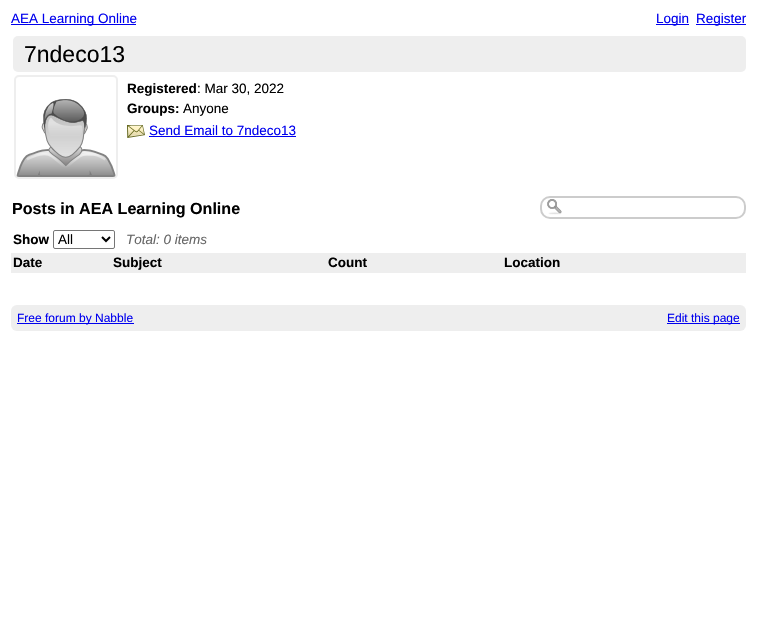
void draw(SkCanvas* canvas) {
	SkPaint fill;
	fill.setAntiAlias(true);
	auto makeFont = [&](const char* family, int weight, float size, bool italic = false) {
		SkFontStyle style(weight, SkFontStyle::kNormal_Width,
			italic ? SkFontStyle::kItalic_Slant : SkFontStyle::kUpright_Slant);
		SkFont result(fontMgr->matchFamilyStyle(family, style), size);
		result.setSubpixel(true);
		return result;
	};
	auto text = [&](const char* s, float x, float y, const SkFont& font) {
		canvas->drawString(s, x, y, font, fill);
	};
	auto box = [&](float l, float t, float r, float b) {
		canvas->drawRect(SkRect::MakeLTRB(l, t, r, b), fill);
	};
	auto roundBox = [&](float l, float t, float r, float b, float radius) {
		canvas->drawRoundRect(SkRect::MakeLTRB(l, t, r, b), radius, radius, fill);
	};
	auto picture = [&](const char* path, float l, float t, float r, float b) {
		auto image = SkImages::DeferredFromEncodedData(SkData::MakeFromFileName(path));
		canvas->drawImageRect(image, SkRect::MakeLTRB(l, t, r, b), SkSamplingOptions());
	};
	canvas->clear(0xFFFFFFFF);
	fill.setColor(0xFF0000EE);
	box(11, 24, 136, 25);
	box(656, 24, 689, 25);
	box(696, 24, 746, 25);
	fill.setColor(0xFFEEEEEE);
	roundBox(13, 36, 746, 72, 5);
	fill.setStyle(SkPaint::kStroke_Style);
	fill.setStrokeWidth(2);
	canvas->drawRoundRect(SkRect::MakeLTRB(15, 76, 117, 178), 4, 4, fill);
	picture("image0.png", 16, 99, 116, 177);
	picture("image1.png", 127, 125, 145, 138);
	fill.setStyle(SkPaint::kFill_Style);
	fill.setColor(0xFF0000EE);
	box(149, 136, 296, 137);
	picture("image2.png", 547, 199, 562, 215);
	fill.setStyle(SkPaint::kStroke_Style);
	fill.setColor(0xFFCCCCCC);
	canvas->drawRoundRect(SkRect::MakeLTRB(541, 197, 745, 218), 9, 9, fill);
	fill.setStrokeWidth(1);
	fill.setColor(0xFF767676);
	canvas->drawRoundRect(SkRect::MakeLTRB(53.5f, 230.5f, 114.5f, 248.5f), 1.5f, 1.5f, fill);
	fill.setStrokeWidth(2);
	fill.setColor(0xFF000000);
	canvas->drawPath(SkPathBuilder().moveTo(102, 237).lineTo(106, 241).lineTo(110, 237).detach(), fill);
	fill.setStyle(SkPaint::kFill_Style);
	fill.setColor(0xFFEEEEEE);
	box(11, 253, 746, 273);
	roundBox(11, 305, 746, 331, 6);
	fill.setColor(0xFF0000EE);
	box(17, 323, 134, 324);
	box(667, 323, 740, 324);
	auto font1 = makeFont("Liberation Sans", 400, 13.5f);
	text("AEA Learning Online", 11, 23, font1);
	text("Login", 656, 23, font1);
	text("Register", 696, 23, font1);
	auto font2 = makeFont("Liberation Sans", 400, 23);
	fill.setColor(0xFF000000);
	text("7ndeco13", 24, 62, font2);
	auto font3 = makeFont("Liberation Sans", 700, 13.5f);
	text("Registered", 127, 93, font3);
	text(": Mar 30, 2022", 197, 93, font1);
	text("Groups:", 127, 113, font3);
	text("Anyone", 183, 113, font1);
	fill.setColor(0xFF0000EE);
	text("Send Email to 7ndeco13", 149, 135, font1);
	auto font4 = makeFont("Liberation Sans", 700, 16.1f);
	fill.setColor(0xFF000000);
	text("Posts in AEA Learning Online", 12, 214, font4);
	text("Show", 13, 244, font3);
	text("All", 58, 244, font1);
	auto font5 = makeFont("Liberation Sans", 400, 13.5f, true);
	fill.setColor(0xFF666666);
	text("Total: 0 items", 126, 244, font5);
	fill.setColor(0xFF000000);
	text("Date", 13, 267, font3);
	text("Subject", 113, 267, font3);
	text("Count", 328, 267, font3);
	text("Location", 504, 267, font3);
	auto font6 = makeFont("Liberation Sans", 400, 12);
	fill.setColor(0xFF0000EE);
	text("Free forum by Nabble", 17, 322, font6);
	text("Edit this page", 667, 322, font6);
}
